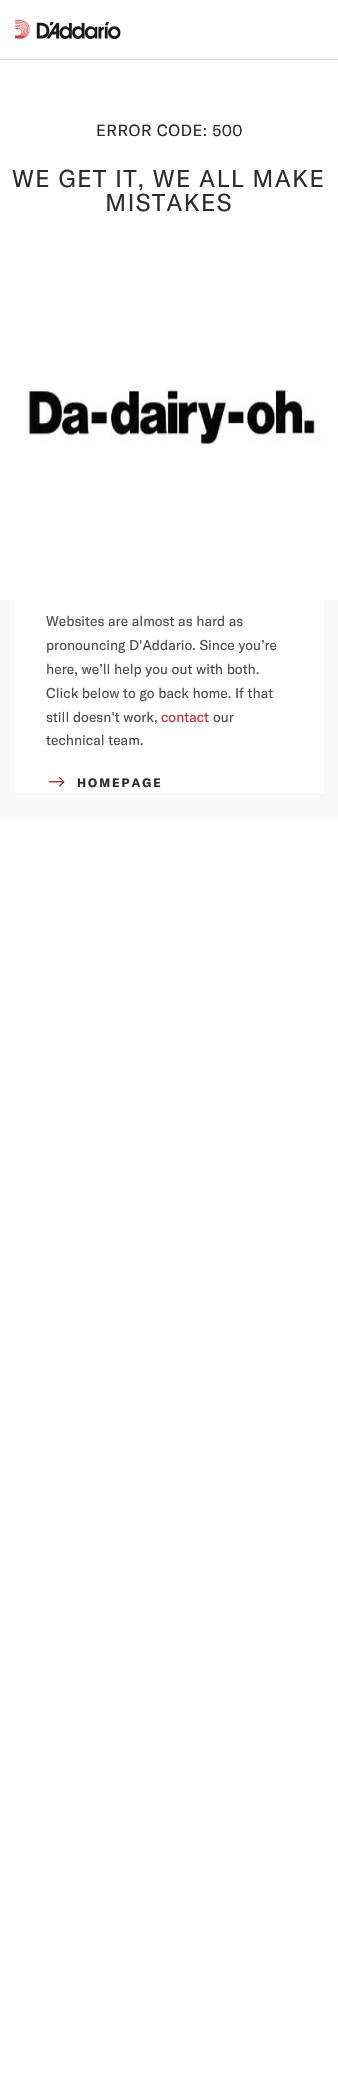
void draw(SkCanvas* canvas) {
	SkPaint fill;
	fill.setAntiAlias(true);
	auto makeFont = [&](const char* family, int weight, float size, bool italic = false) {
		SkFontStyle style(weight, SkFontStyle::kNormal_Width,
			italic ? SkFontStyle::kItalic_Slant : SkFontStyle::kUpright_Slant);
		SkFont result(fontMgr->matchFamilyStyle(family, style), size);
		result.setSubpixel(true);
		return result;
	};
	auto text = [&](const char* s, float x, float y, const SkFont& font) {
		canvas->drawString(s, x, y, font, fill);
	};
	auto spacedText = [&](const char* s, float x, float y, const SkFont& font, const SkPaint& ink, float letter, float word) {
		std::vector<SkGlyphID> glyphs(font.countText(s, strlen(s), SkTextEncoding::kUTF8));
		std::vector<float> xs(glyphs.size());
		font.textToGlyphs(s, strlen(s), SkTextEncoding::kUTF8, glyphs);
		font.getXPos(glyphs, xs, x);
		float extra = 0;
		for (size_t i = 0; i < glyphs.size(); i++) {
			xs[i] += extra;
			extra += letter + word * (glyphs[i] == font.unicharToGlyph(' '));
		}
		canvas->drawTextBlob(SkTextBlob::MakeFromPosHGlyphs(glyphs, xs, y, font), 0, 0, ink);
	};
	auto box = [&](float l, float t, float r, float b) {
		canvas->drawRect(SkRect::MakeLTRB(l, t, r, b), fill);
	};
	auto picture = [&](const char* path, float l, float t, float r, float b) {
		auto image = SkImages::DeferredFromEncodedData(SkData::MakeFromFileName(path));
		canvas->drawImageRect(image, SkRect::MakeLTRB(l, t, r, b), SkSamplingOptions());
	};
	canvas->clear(0xFFFFFFFF);
	fill.setColor(0xFFDBDFE4);
	box(0, 59, 338, 60);
	picture("image0.png", 15, 20, 121, 39);
	fill.setColor(0xFFF8F8F8);
	box(0, 599, 338, 817);
	picture("image1.png", 0, 272, 338, 600);
	fill.setColor(0xFFFFFFFF);
	box(14, 600, 324, 793);
	picture("image2.png", 49, 777, 65, 787);
	auto font1 = makeFont("GT America", 400, 16);
	fill.setColor(0xFF2C2C2C);
	spacedText("ERROR CODE: 500", 96, 136, font1, fill, 0.5f, 0);
	auto font2 = makeFont("GT America", 400, 24);
	spacedText("WE GET IT, WE ALL MAKE", 12, 187, font2, fill, 1.2f, 0);
	spacedText("MISTAKES", 105, 211, font2, fill, 1.2f, 0);
	auto font3 = makeFont("GT America", 400, 14);
	fill.setColor(0xFF4A4A4A);
	text("Websites are almost as hard as", 46, 626, font3);
	text("pronouncing D'Addario. Since you’re", 46, 650, font3);
	text("here, we’ll help you out with both.", 46, 674, font3);
	text("Click below to go back home. If that", 46, 698, font3);
	text("still doesn't work,", 46, 722, font3);
	fill.setColor(0xFFCF2027);
	text("contact", 161, 722, font3);
	fill.setColor(0xFF4A4A4A);
	text("our", 213, 722, font3);
	text("technical team.", 46, 745, font3);
	auto font4 = makeFont("GT America", 700, 12);
	fill.setColor(0xFF2C2C2C);
	spacedText("HOMEPAGE", 77, 787, font4, fill, 2, 0);
}
